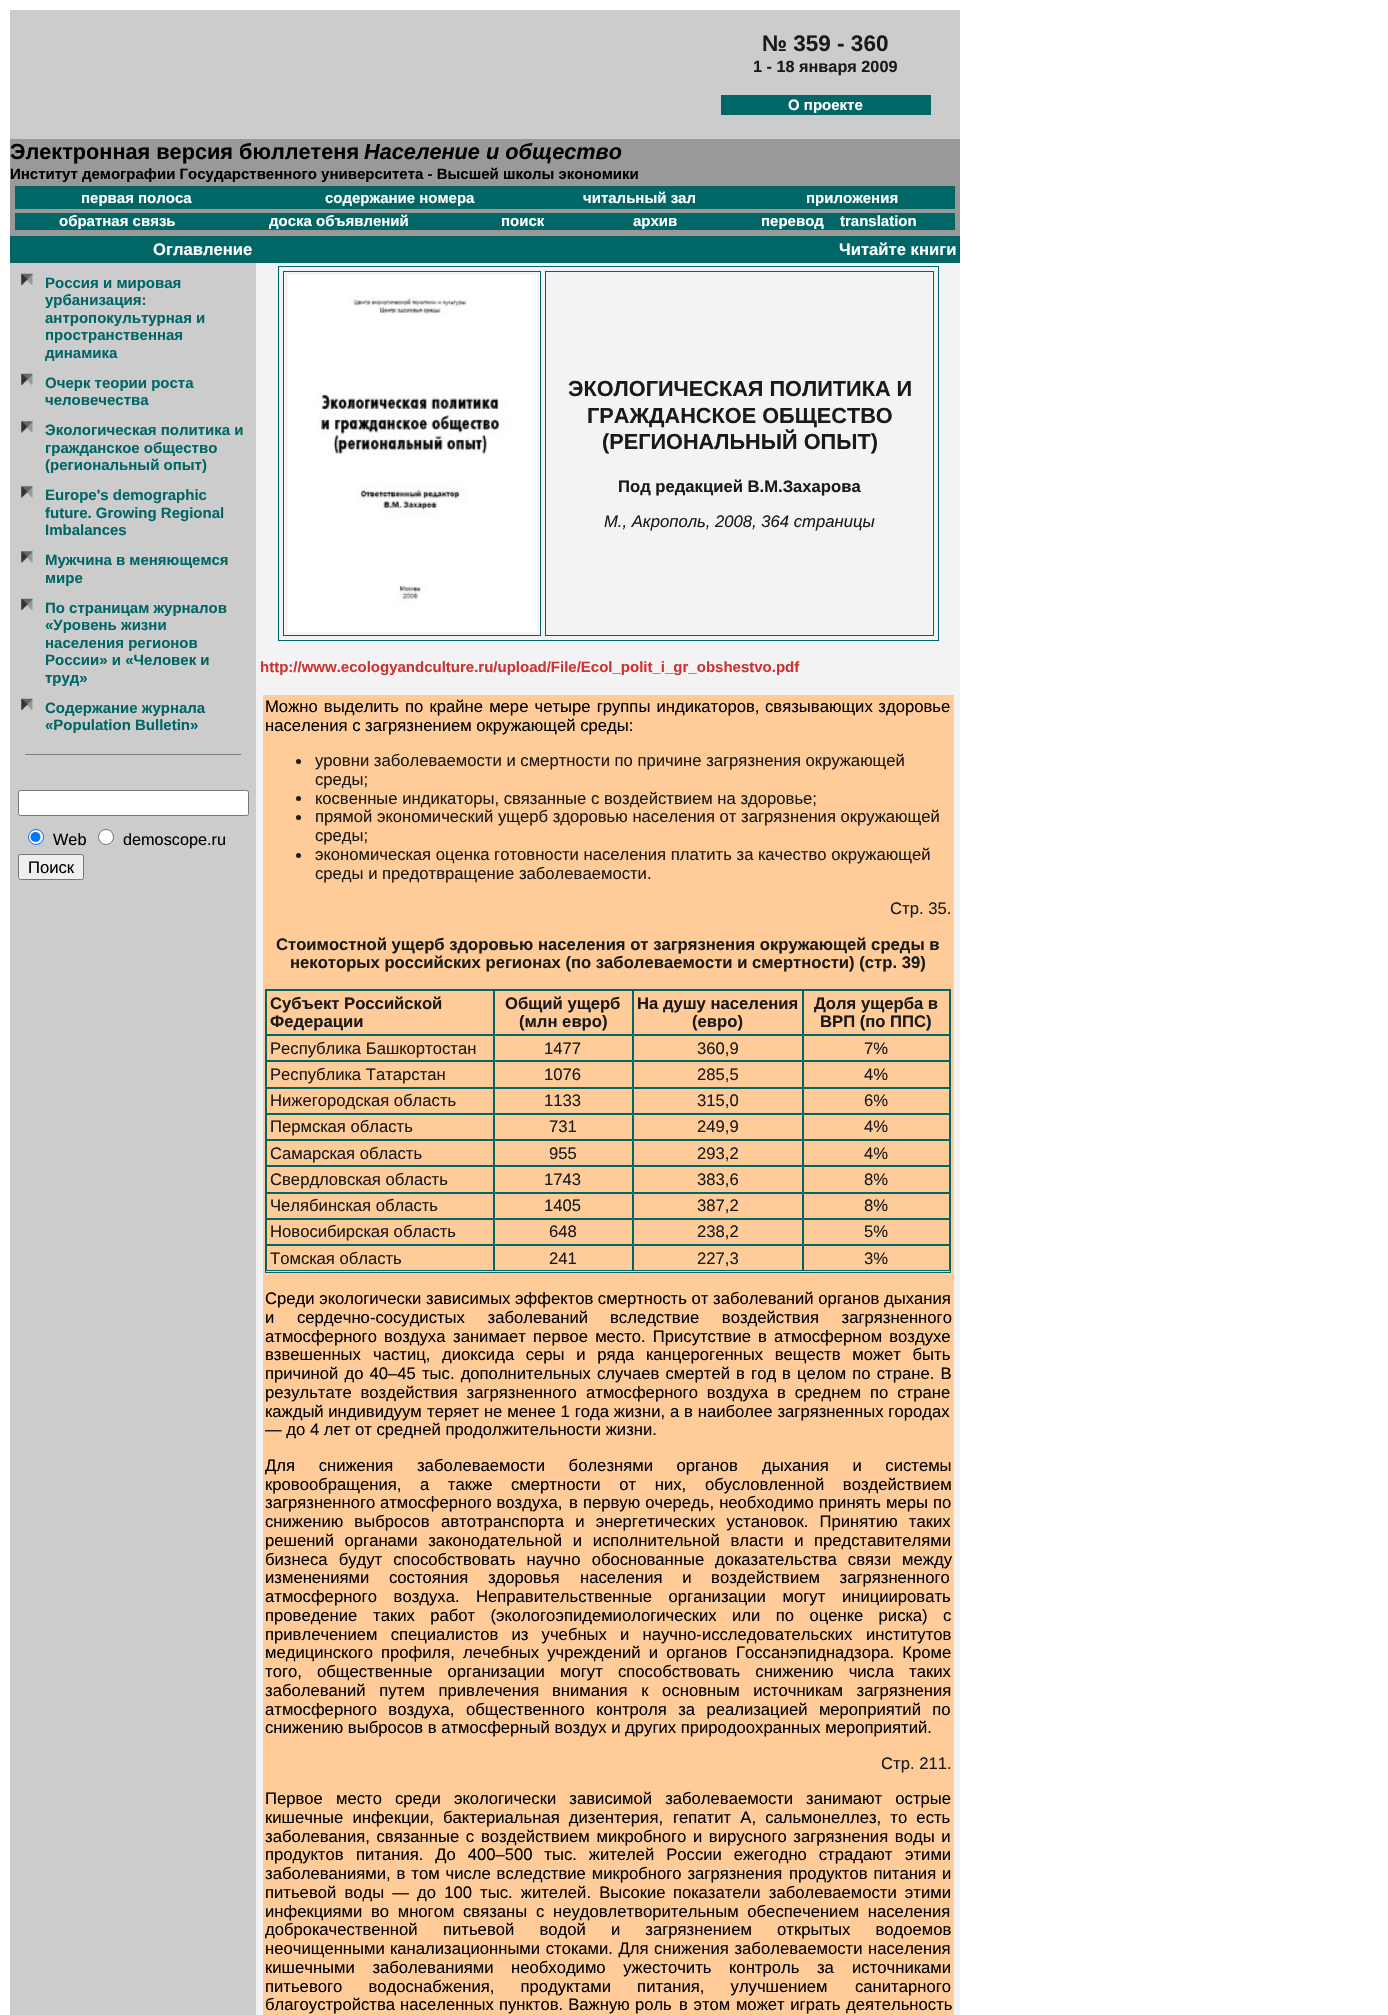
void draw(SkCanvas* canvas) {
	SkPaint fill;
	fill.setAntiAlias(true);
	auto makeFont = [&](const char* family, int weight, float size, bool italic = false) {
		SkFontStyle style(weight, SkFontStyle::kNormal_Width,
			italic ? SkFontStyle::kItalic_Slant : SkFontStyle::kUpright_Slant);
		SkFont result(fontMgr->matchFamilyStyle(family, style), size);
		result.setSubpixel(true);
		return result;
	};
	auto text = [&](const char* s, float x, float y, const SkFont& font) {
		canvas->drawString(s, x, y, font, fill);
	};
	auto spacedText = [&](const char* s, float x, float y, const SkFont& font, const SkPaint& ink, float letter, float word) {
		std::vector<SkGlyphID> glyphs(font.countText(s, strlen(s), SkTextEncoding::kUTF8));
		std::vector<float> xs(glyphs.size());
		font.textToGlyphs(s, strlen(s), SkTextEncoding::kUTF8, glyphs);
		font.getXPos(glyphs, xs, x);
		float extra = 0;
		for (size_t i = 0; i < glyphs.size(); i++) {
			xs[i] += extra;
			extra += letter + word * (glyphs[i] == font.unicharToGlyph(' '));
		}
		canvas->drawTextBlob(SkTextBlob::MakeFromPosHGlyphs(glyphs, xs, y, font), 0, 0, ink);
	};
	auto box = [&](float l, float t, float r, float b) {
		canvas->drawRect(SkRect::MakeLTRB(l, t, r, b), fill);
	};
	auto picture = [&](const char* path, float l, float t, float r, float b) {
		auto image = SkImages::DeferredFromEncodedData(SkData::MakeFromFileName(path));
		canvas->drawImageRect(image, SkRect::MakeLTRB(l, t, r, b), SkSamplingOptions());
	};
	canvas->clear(0xFFFFFFFF);
	fill.setColor(0xFFCCCCCC);
	box(10, 10, 960, 139);
	fill.setColor(0xFF006666);
	box(721, 95, 931, 115);
	fill.setColor(0xFF999999);
	box(10, 139, 960, 236);
	fill.setColor(0xFF006666);
	box(15, 186, 955, 209);
	box(15, 213, 955, 230);
	fill.setColor(0xFFF3F3F3);
	box(256, 263, 960, 2015);
	fill.setColor(0xFF006666);
	box(10, 236, 960, 263);
	fill.setColor(0xFFCCCCCC);
	box(10, 263, 256, 2015);
	picture("image0.png", 21, 273, 33, 285);
	picture("image0.png", 21, 373, 33, 385);
	picture("image1.png", 21, 421, 33, 433);
	picture("image1.png", 21, 486, 33, 498);
	picture("image1.png", 21, 551, 33, 563);
	picture("image0.png", 21, 598, 33, 610);
	picture("image0.png", 21, 698, 33, 710);
	fill.setColor(0xFF808080);
	box(25, 754, 241, 755);
	fill.setColor(0xFFFFFFFF);
	canvas->drawRoundRect(SkRect::MakeLTRB(18.5f, 790.5f, 248.5f, 815.5f), 2, 2, fill);
	fill.setStyle(SkPaint::kStroke_Style);
	fill.setStrokeWidth(1);
	fill.setColor(0xFF767676);
	canvas->drawRoundRect(SkRect::MakeLTRB(18.5f, 790.5f, 248.5f, 815.5f), 2, 2, fill);
	fill.setStyle(SkPaint::kFill_Style);
	fill.setColor(0xFFFFFFFF);
	canvas->drawCircle(36, 837, 7.5f, fill);
	fill.setStyle(SkPaint::kStroke_Style);
	fill.setColor(0xFF0075FF);
	canvas->drawCircle(36, 837, 7.5f, fill);
	fill.setStyle(SkPaint::kFill_Style);
	canvas->drawCircle(35.5f, 837, 5, fill);
	fill.setColor(0xFFFFFFFF);
	canvas->drawCircle(106, 837, 7.5f, fill);
	fill.setStyle(SkPaint::kStroke_Style);
	fill.setColor(0xFF767676);
	canvas->drawCircle(106, 837, 7.5f, fill);
	fill.setStyle(SkPaint::kFill_Style);
	fill.setColor(0xFFEFEFEF);
	canvas->drawRoundRect(SkRect::MakeLTRB(18.5f, 854.5f, 83.5f, 879.5f), 2, 2, fill);
	fill.setStyle(SkPaint::kStroke_Style);
	fill.setColor(0xFF767676);
	canvas->drawRoundRect(SkRect::MakeLTRB(18.5f, 854.5f, 83.5f, 879.5f), 2, 2, fill);
	fill.setColor(0xFF006468);
	canvas->drawRect(SkRect::MakeLTRB(278.5f, 266.5f, 938.5f, 640.5f), fill);
	canvas->drawRect(SkRect::MakeLTRB(283.5f, 271.5f, 540.5f, 635.5f), fill);
	picture("image2.png", 287, 275, 538, 633);
	canvas->drawRect(SkRect::MakeLTRB(545.5f, 271.5f, 933.5f, 635.5f), fill);
	fill.setStyle(SkPaint::kFill_Style);
	fill.setColor(0xFFFFCC99);
	box(263, 695, 954, 2015);
	fill.setColor(0xFF1A1A1A);
	canvas->drawCircle(298.5f, 761.5f, 2.5f, fill);
	canvas->drawCircle(298.5f, 798.5f, 2.5f, fill);
	canvas->drawCircle(298.5f, 817.5f, 2.5f, fill);
	canvas->drawCircle(298.5f, 855.5f, 2.5f, fill);
	fill.setStyle(SkPaint::kStroke_Style);
	fill.setColor(0xFF006666);
	canvas->drawRect(SkRect::MakeLTRB(265.5f, 989.5f, 950.5f, 1272.5f), fill);
	canvas->drawRect(SkRect::MakeLTRB(266.5f, 990.5f, 493.5f, 1034.5f), fill);
	canvas->drawRect(SkRect::MakeLTRB(494.5f, 990.5f, 632.5f, 1034.5f), fill);
	canvas->drawRect(SkRect::MakeLTRB(633.5f, 990.5f, 802.5f, 1034.5f), fill);
	canvas->drawRect(SkRect::MakeLTRB(803.5f, 990.5f, 949.5f, 1034.5f), fill);
	canvas->drawRect(SkRect::MakeLTRB(266.5f, 1035.5f, 493.5f, 1060.5f), fill);
	canvas->drawRect(SkRect::MakeLTRB(494.5f, 1035.5f, 632.5f, 1060.5f), fill);
	canvas->drawRect(SkRect::MakeLTRB(633.5f, 1035.5f, 802.5f, 1060.5f), fill);
	canvas->drawRect(SkRect::MakeLTRB(803.5f, 1035.5f, 949.5f, 1060.5f), fill);
	canvas->drawRect(SkRect::MakeLTRB(266.5f, 1061.5f, 493.5f, 1087.5f), fill);
	canvas->drawRect(SkRect::MakeLTRB(494.5f, 1061.5f, 632.5f, 1087.5f), fill);
	canvas->drawRect(SkRect::MakeLTRB(633.5f, 1061.5f, 802.5f, 1087.5f), fill);
	canvas->drawRect(SkRect::MakeLTRB(803.5f, 1061.5f, 949.5f, 1087.5f), fill);
	canvas->drawRect(SkRect::MakeLTRB(266.5f, 1088.5f, 493.5f, 1113.5f), fill);
	canvas->drawRect(SkRect::MakeLTRB(494.5f, 1088.5f, 632.5f, 1113.5f), fill);
	canvas->drawRect(SkRect::MakeLTRB(633.5f, 1088.5f, 802.5f, 1113.5f), fill);
	canvas->drawRect(SkRect::MakeLTRB(803.5f, 1088.5f, 949.5f, 1113.5f), fill);
	canvas->drawRect(SkRect::MakeLTRB(266.5f, 1114.5f, 493.5f, 1139.5f), fill);
	canvas->drawRect(SkRect::MakeLTRB(494.5f, 1114.5f, 632.5f, 1139.5f), fill);
	canvas->drawRect(SkRect::MakeLTRB(633.5f, 1114.5f, 802.5f, 1139.5f), fill);
	canvas->drawRect(SkRect::MakeLTRB(803.5f, 1114.5f, 949.5f, 1139.5f), fill);
	canvas->drawRect(SkRect::MakeLTRB(266.5f, 1140.5f, 493.5f, 1165.5f), fill);
	canvas->drawRect(SkRect::MakeLTRB(494.5f, 1140.5f, 632.5f, 1165.5f), fill);
	canvas->drawRect(SkRect::MakeLTRB(633.5f, 1140.5f, 802.5f, 1165.5f), fill);
	canvas->drawRect(SkRect::MakeLTRB(803.5f, 1140.5f, 949.5f, 1165.5f), fill);
	canvas->drawRect(SkRect::MakeLTRB(266.5f, 1166.5f, 493.5f, 1192.5f), fill);
	canvas->drawRect(SkRect::MakeLTRB(494.5f, 1166.5f, 632.5f, 1192.5f), fill);
	canvas->drawRect(SkRect::MakeLTRB(633.5f, 1166.5f, 802.5f, 1192.5f), fill);
	canvas->drawRect(SkRect::MakeLTRB(803.5f, 1166.5f, 949.5f, 1192.5f), fill);
	canvas->drawRect(SkRect::MakeLTRB(266.5f, 1193.5f, 493.5f, 1218.5f), fill);
	canvas->drawRect(SkRect::MakeLTRB(494.5f, 1193.5f, 632.5f, 1218.5f), fill);
	canvas->drawRect(SkRect::MakeLTRB(633.5f, 1193.5f, 802.5f, 1218.5f), fill);
	canvas->drawRect(SkRect::MakeLTRB(803.5f, 1193.5f, 949.5f, 1218.5f), fill);
	canvas->drawRect(SkRect::MakeLTRB(266.5f, 1219.5f, 493.5f, 1244.5f), fill);
	canvas->drawRect(SkRect::MakeLTRB(494.5f, 1219.5f, 632.5f, 1244.5f), fill);
	canvas->drawRect(SkRect::MakeLTRB(633.5f, 1219.5f, 802.5f, 1244.5f), fill);
	canvas->drawRect(SkRect::MakeLTRB(803.5f, 1219.5f, 949.5f, 1244.5f), fill);
	canvas->drawRect(SkRect::MakeLTRB(266.5f, 1245.5f, 493.5f, 1270.5f), fill);
	canvas->drawRect(SkRect::MakeLTRB(494.5f, 1245.5f, 632.5f, 1270.5f), fill);
	canvas->drawRect(SkRect::MakeLTRB(633.5f, 1245.5f, 802.5f, 1270.5f), fill);
	canvas->drawRect(SkRect::MakeLTRB(803.5f, 1245.5f, 949.5f, 1270.5f), fill);
	auto font1 = makeFont("Liberation Sans", 700, 22.5f);
	fill.setStyle(SkPaint::kFill_Style);
	fill.setColor(0xFF1A1A1A);
	text("№ 359 - 360", 762, 51, font1);
	auto font2 = makeFont("Liberation Sans", 700, 16.25f);
	text("1 - 18 января 2009", 753, 72, font2);
	auto font3 = makeFont("Liberation Sans", 700, 15);
	fill.setColor(0xFFFFFFFF);
	text("О проекте", 788, 110, font3);
	auto font4 = makeFont("Liberation Sans", 700, 21.7f);
	fill.setColor(0xFF000000);
	text("Электронная версия бюллетеня", 10, 159, font4);
	auto font5 = makeFont("Liberation Sans", 700, 21.7f, true);
	text("Население и общество", 364, 159, font5);
	text("Институт демографии Государственного университета - Высшей школы экономики", 10, 179, font3);
	fill.setColor(0xFFFFFFFF);
	text("первая полоса", 81, 203, font3);
	text("содержание номера", 325, 203, font3);
	text("читальный зал", 583, 203, font3);
	text("приложения", 806, 203, font3);
	text("обратная связь", 59, 226, font3);
	text("доска объявлений", 269, 226, font3);
	text("поиск", 501, 226, font3);
	text("архив", 633, 226, font3);
	text("перевод", 761, 226, font3);
	text("translation", 840, 226, font3);
	auto font6 = makeFont("Liberation Sans", 700, 16.65f);
	text("Оглавление", 153, 255, font6);
	text("Читайте книги", 839, 255, font6);
	fill.setColor(0xFF006666);
	text("Россия и мировая", 45, 288, font3);
	text("урбанизация:", 45, 305, font3);
	text("антропокультурная и", 45, 323, font3);
	text("пространственная", 45, 340, font3);
	text("динамика", 45, 358, font3);
	text("Очерк теории роста", 45, 388, font3);
	text("человечества", 45, 405, font3);
	text("Экологическая политика и", 45, 435, font3);
	text("гражданское общество", 45, 453, font3);
	text("(региональный опыт)", 45, 470, font3);
	text("Europe's demographic", 45, 500, font3);
	text("future. Growing Regional", 45, 518, font3);
	text("Imbalances", 45, 535, font3);
	text("Мужчина в меняющемся", 45, 565, font3);
	text("мире", 45, 583, font3);
	text("По страницам журналов", 45, 613, font3);
	text("«Уровень жизни", 45, 630, font3);
	text("населения регионов", 45, 648, font3);
	text("России» и «Человек и", 45, 665, font3);
	text("труд»", 45, 683, font3);
	text("Содержание журнала", 45, 713, font3);
	text("«Population Bulletin»", 45, 730, font3);
	auto font7 = makeFont("Liberation Sans", 400, 16.25f);
	fill.setColor(0xFF000000);
	text("Web", 53, 845, font7);
	text("demoscope.ru", 123, 845, font7);
	auto font8 = makeFont("Liberation Sans", 400, 16.65f);
	text("Поиск", 28, 873, font8);
	fill.setColor(0xFF1A1A1A);
	text("ЭКОЛОГИЧЕСКАЯ ПОЛИТИКА И", 568, 396, font4);
	text("ГРАЖДАНСКОЕ ОБЩЕСТВО", 587, 423, font4);
	text("(РЕГИОНАЛЬНЫЙ ОПЫТ)", 602, 449, font4);
	text("Под редакцией В.М.Захарова", 618, 492, font6);
	auto font9 = makeFont("Liberation Sans", 400, 16.65f, true);
	text("М., Акрополь, 2008, 364 страницы", 604, 527, font9);
	fill.setColor(0xFFCC3333);
	text("http://www.ecologyandculture.ru/upload/File/Ecol_polit_i_gr_obshestvo.pdf", 260, 672, font3);
	fill.setColor(0xFF000000);
	spacedText("Можно выделить по крайне мере четыре группы индикаторов,", 265, 712, font8, fill, 0, 1.5f);
	spacedText("связывающих здоровье", 765, 712, font8, fill, 0, 1);
	text("населения с загрязнением окружающей среды:", 265, 731, font8);
	fill.setColor(0xFF1A1A1A);
	text("уровни заболеваемости и смертности по причине загрязнения окружающей", 315, 766, font8);
	text("среды;", 315, 785, font8);
	text("косвенные индикаторы, связанные с воздействием на здоровье;", 315, 804, font8);
	text("прямой экономический ущерб здоровью населения от загрязнения окружающей", 315, 822, font8);
	text("среды;", 315, 841, font8);
	text("экономическая оценка готовности населения платить за качество окружающей", 315, 860, font8);
	text("среды и предотвращение заболеваемости.", 315, 879, font8);
	text("Стр. 35.", 890, 914, font8);
	text("Стоимостной ущерб здоровью населения от загрязнения окружающей среды в", 276, 950, font6);
	text("некоторых российских регионах (по заболеваемости и смертности) (стр. 39)", 290, 968, font6);
	text("Субъект Российской", 270, 1009, font6);
	text("Федерации", 270, 1027, font6);
	text("Общий ущерб", 505, 1009, font6);
	text("(млн евро)", 519, 1027, font6);
	text("На душу населения", 637, 1009, font6);
	text("(евро)", 692, 1027, font6);
	text("Доля ущерба в", 814, 1009, font6);
	text("ВРП (по ППС)", 820, 1027, font6);
	text("Республика Башкортостан", 270, 1054, font8);
	text("1477", 544, 1054, font8);
	text("360,9", 697, 1054, font8);
	text("7%", 864, 1054, font8);
	text("Республика Татарстан", 270, 1080, font8);
	text("1076", 544, 1080, font8);
	text("285,5", 697, 1080, font8);
	text("4%", 864, 1080, font8);
	text("Нижегородская область", 270, 1106, font8);
	text("1133", 544, 1106, font8);
	text("315,0", 697, 1106, font8);
	text("6%", 864, 1106, font8);
	text("Пермская область", 270, 1132, font8);
	text("731", 549, 1132, font8);
	text("249,9", 697, 1132, font8);
	text("4%", 864, 1132, font8);
	text("Самарская область", 270, 1159, font8);
	text("955", 549, 1159, font8);
	text("293,2", 697, 1159, font8);
	text("4%", 864, 1159, font8);
	text("Свердловская область", 270, 1185, font8);
	text("1743", 544, 1185, font8);
	text("383,6", 697, 1185, font8);
	text("8%", 864, 1185, font8);
	text("Челябинская область", 270, 1211, font8);
	text("1405", 544, 1211, font8);
	text("387,2", 697, 1211, font8);
	text("8%", 864, 1211, font8);
	text("Новосибирская область", 270, 1237, font8);
	text("648", 549, 1237, font8);
	text("238,2", 697, 1237, font8);
	text("5%", 864, 1237, font8);
	text("Томская область", 270, 1264, font8);
	text("241", 549, 1264, font8);
	text("227,3", 697, 1264, font8);
	text("3%", 864, 1264, font8);
	fill.setColor(0xFF000000);
	text("Среди экологически зависимых эффектов смертность от заболеваний органов дыхания", 265, 1304, font8);
	spacedText("и сердечно-сосудистых заболеваний", 265, 1323, font8, fill, 0, 18);
	spacedText("вследствие воздействия загрязненного", 610, 1323, font8, fill, 0, 18);
	spacedText("атмосферного воздуха", 265, 1342, font8, fill, 0, 2.5f);
	spacedText("занимает первое место. Присутствие в атмосферном воздухе", 453, 1342, font8, fill, 0, 2.5f);
	text("взвешенных", 265, 1360, font8);
	spacedText("частиц, диоксида серы и ряда канцерогенных веществ может быть", 373, 1360, font8, fill, 0, 7);
	spacedText("причиной до 40–45 тыс. дополнительных случаев смертей в год", 265, 1379, font8, fill, 0, 1.5f);
	spacedText("в целом по стране. В", 782, 1379, font8, fill, 0, 1.5f);
	spacedText("результате воздействия загрязненного", 265, 1398, font8, fill, 0, 4.25f);
	spacedText("атмосферного воздуха в среднем по стране", 586, 1398, font8, fill, 0, 4.25f);
	text("каждый индивидуум", 265, 1417, font8);
	spacedText("теряет не менее 1 года жизни, а в наиболее загрязненных городах", 427, 1417, font8, fill, 0, 0.25f);
	text("— до 4 лет от средней продолжительности жизни.", 265, 1435, font8);
	spacedText("Для снижения заболеваемости болезнями органов", 265, 1471, font8, fill, 0, 19);
	spacedText("дыхания и системы", 762, 1471, font8, fill, 0, 19);
	spacedText("кровообращения, а также смертности от них,", 265, 1490, font8, fill, 0, 14);
	spacedText("обусловленной воздействием", 705, 1490, font8, fill, 0, 14);
	text("загрязненного атмосферного воздуха,", 265, 1508, font8);
	spacedText("в первую очередь, необходимо принять меры по", 569, 1508, font8, fill, 0, 0.5f);
	spacedText("снижению выбросов", 265, 1527, font8, fill, 0, 6.5f);
	spacedText("автотранспорта и энергетических установок. Принятию таких", 441, 1527, font8, fill, 0, 6.5f);
	spacedText("решений органами законодательной и исполнительной власти и", 265, 1546, font8, fill, 0, 6);
	text("представителями", 814, 1546, font8);
	spacedText("бизнеса будут способствовать научно обоснованные", 265, 1565, font8, fill, 0, 6.5f);
	spacedText("доказательства связи между", 715, 1565, font8, fill, 0, 6.5f);
	spacedText("изменениями состояния здоровья", 265, 1583, font8, fill, 0, 15);
	spacedText("населения и воздействием загрязненного", 580, 1583, font8, fill, 0, 15);
	spacedText("атмосферного воздуха.", 265, 1602, font8, fill, 0, 12);
	spacedText("Неправительственные организации могут инициировать", 476, 1602, font8, fill, 0, 12);
	text("проведение", 265, 1621, font8);
	spacedText("таких работ (экологоэпидемиологических или по оценке риска)", 373, 1621, font8, fill, 0, 10.75f);
	text("с", 943, 1621, font8);
	spacedText("привлечением специалистов из учебных и научно-исследовательских", 265, 1640, font8, fill, 0, 8.5f);
	text("институтов", 866, 1640, font8);
	spacedText("медицинского профиля, лечебных учреждений и органов", 265, 1658, font8, fill, 0, 3.5f);
	spacedText("Госсанэпиднадзора. Кроме", 736, 1658, font8, fill, 0, 3.5f);
	spacedText("того, общественные организации могут", 265, 1677, font8, fill, 0, 10.5f);
	spacedText("способствовать снижению числа таких", 618, 1677, font8, fill, 0, 10.5f);
	spacedText("заболеваний путем привлечения", 265, 1696, font8, fill, 0, 9);
	spacedText("внимания к основным источникам загрязнения", 552, 1696, font8, fill, 0, 9);
	spacedText("атмосферного воздуха,", 265, 1715, font8, fill, 0, 6.75f);
	spacedText("общественного контроля за реализацией мероприятий по", 466, 1715, font8, fill, 0, 6.75f);
	text("снижению выбросов в атмосферный воздух и других природоохранных мероприятий.", 265, 1733, font8);
	fill.setColor(0xFF1A1A1A);
	text("Стр. 211.", 881, 1769, font8);
	fill.setColor(0xFF000000);
	spacedText("Первое место среди экологически зависимой заболеваемости", 265, 1804, font8, fill, 0, 8.5f);
	spacedText("занимают острые", 806, 1804, font8, fill, 0, 8.5f);
	spacedText("кишечные инфекции, бактериальная дизентерия,", 265, 1823, font8, fill, 0, 4.5f);
	spacedText("гепатит А, сальмонеллез, то есть", 673, 1823, font8, fill, 0, 4.5f);
	spacedText("заболевания, связанные с", 265, 1842, font8, fill, 0, 2);
	spacedText("воздействием микробного и вирусного загрязнения воды и", 481, 1842, font8, fill, 0, 2);
	text("продуктов", 265, 1860, font8);
	spacedText("питания. До 400–500 тыс. жителей России ежегодно страдают", 356, 1860, font8, fill, 0, 7.25f);
	text("этими", 905, 1860, font8);
	spacedText("заболеваниями, в том числе вследствие микробного загрязнения", 265, 1879, font8, fill, 0, 1.25f);
	spacedText("продуктов питания и", 789, 1879, font8, fill, 0, 1.25f);
	spacedText("питьевой воды — до 100 тыс. жителей. Высокие", 265, 1898, font8, fill, 0, 3.5f);
	spacedText("показатели заболеваемости этими", 673, 1898, font8, fill, 0, 3.5f);
	spacedText("инфекциями во многом связаны", 265, 1917, font8, fill, 0, 4);
	spacedText("с неудовлетворительным обеспечением населения", 536, 1917, font8, fill, 0, 4);
	text("доброкачественной", 265, 1935, font8);
	spacedText("питьевой водой и загрязнением открытых водоемов", 443, 1935, font8, fill, 0, 20.5f);
	text("неочищенными", 265, 1954, font8);
	spacedText("канализационными стоками. Для снижения заболеваемости населения", 390, 1954, font8, fill, 0, 1);
	spacedText("кишечными заболеваниями необходимо ужесточить контроль за", 265, 1973, font8, fill, 0, 13);
	text("источниками", 852, 1973, font8);
	spacedText("питьевого водоснабжения, продуктами питания, улучшением", 265, 1992, font8, fill, 0, 21.5f);
	text("санитарного", 855, 1992, font8);
	spacedText("благоустройства населенных пунктов. Важную роль", 265, 2010, font8, fill, 0, 0.5f);
	spacedText("в этом может играть деятельность", 679, 2010, font8, fill, 0, 1);
}
